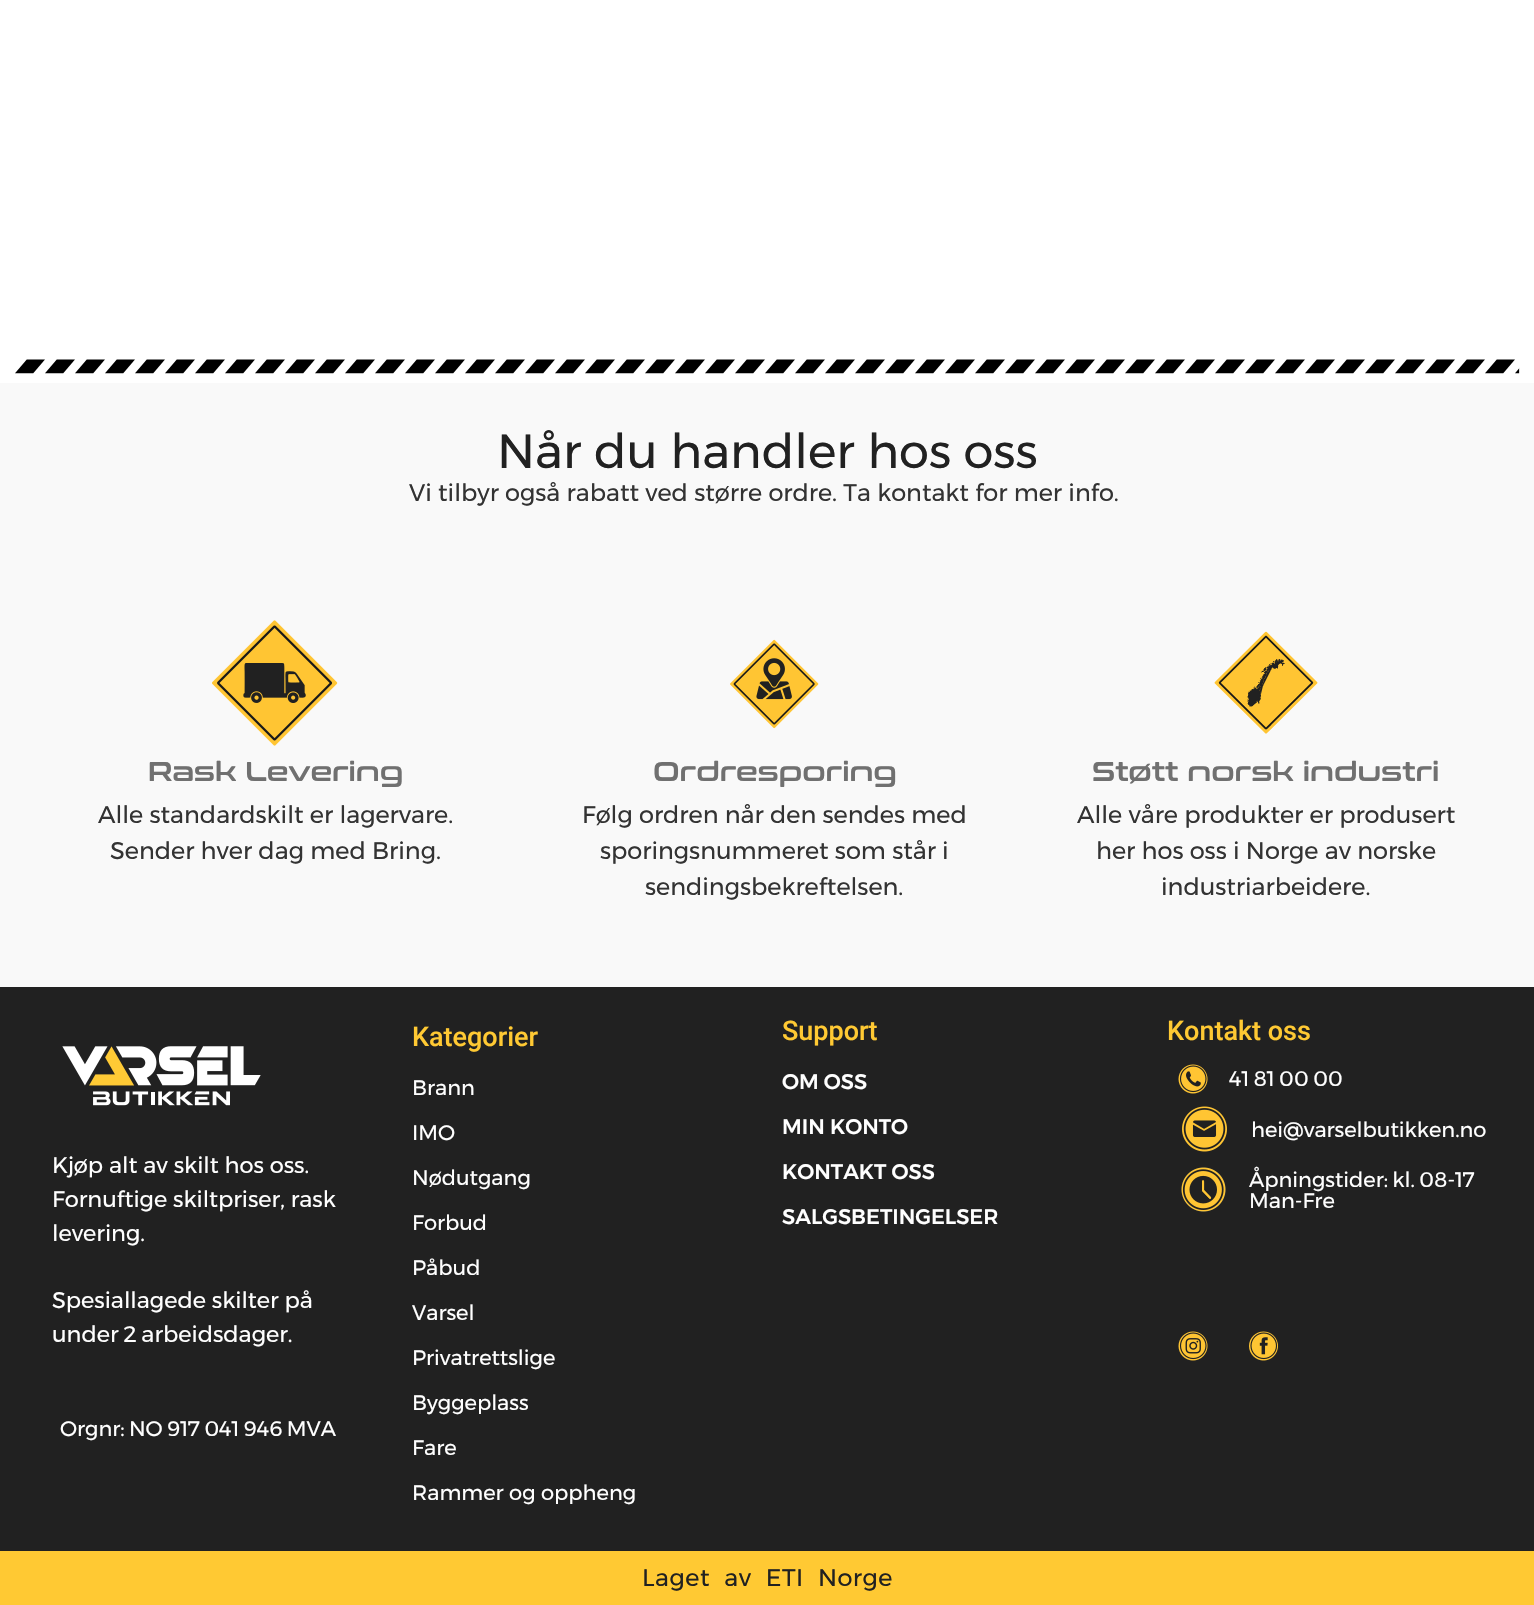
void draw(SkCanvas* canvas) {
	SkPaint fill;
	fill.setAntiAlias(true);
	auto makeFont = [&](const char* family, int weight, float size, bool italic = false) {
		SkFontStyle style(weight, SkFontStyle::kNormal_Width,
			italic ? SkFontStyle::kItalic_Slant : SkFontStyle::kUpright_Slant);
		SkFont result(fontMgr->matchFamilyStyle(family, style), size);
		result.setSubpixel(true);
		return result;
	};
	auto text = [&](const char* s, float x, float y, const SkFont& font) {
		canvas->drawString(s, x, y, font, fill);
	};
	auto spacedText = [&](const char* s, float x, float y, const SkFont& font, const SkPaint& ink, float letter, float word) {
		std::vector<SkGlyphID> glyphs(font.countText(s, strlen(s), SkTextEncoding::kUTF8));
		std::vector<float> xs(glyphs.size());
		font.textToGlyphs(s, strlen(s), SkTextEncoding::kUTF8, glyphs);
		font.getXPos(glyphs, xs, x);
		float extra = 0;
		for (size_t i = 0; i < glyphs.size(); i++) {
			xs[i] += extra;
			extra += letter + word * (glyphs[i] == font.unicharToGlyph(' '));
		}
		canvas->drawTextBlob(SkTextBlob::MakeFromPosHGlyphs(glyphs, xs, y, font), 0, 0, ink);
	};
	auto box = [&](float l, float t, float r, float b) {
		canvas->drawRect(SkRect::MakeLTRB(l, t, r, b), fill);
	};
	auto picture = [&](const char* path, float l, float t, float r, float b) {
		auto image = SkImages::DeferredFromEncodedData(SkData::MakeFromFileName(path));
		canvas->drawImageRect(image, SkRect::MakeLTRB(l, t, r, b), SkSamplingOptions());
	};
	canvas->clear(0xFFFFFFFF);
	picture("image0.png", 15, 359, 1520, 374);
	fill.setColor(0xFFF9F9F9);
	box(0, 383, 1534, 987);
	picture("image1.png", 212, 620, 338, 746);
	picture("image2.png", 730, 639, 819, 729);
	picture("image3.png", 1214, 631, 1318, 734);
	fill.setColor(0xFF212121);
	box(0, 987, 1534, 1551);
	picture("image4.png", 62, 1046, 261, 1106);
	picture("image5.png", 1178, 1064, 1208, 1094);
	picture("image6.png", 1182, 1106, 1227, 1152);
	picture("image7.png", 1181, 1167, 1226, 1212);
	picture("image8.png", 1178, 1331, 1208, 1361);
	picture("image9.png", 1249, 1331, 1278, 1361);
	fill.setColor(0xFFFFC933);
	box(0, 1551, 1534, 1605);
	auto font1 = makeFont("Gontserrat", 400, 48);
	fill.setColor(0xFF212121);
	text("Når du handler hos oss", 497, 468, font1);
	auto font2 = makeFont("Gontserrat", 400, 24);
	fill.setColor(0xFF333333);
	text("Vi tilbyr også rabatt ved større ordre. Ta kontakt for mer info.", 409, 501, font2);
	auto font3 = makeFont("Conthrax", 400, 27);
	fill.setColor(0xFF707070);
	text("Rask Levering", 148, 781, font3);
	fill.setColor(0xFF333333);
	text("Alle standardskilt er lagervare.", 98, 823, font2);
	text("Sender hver dag med Bring.", 110, 859, font2);
	fill.setColor(0xFF707070);
	text("Ordresporing", 653, 781, font3);
	fill.setColor(0xFF333333);
	text("Følg ordren når den sendes med", 582, 823, font2);
	text("sporingsnummeret som står i", 600, 859, font2);
	text("sendingsbekreftelsen.", 645, 895, font2);
	fill.setColor(0xFF707070);
	text("Støtt norsk industri", 1092, 781, font3);
	fill.setColor(0xFF333333);
	text("Alle våre produkter er produsert", 1077, 823, font2);
	text("her hos oss i Norge av norske", 1096, 859, font2);
	text("industriarbeidere.", 1161, 895, font2);
	auto font4 = makeFont("Gontserrat", 400, 22.5f);
	fill.setColor(0xFFFFFFFF);
	text("Kjøp alt av skilt hos oss.", 52, 1173, font4);
	text("Fornuftige skiltpriser, rask", 52, 1207, font4);
	text("levering.", 52, 1241, font4);
	text("Spesiallagede skilter på", 52, 1308, font4);
	spacedText("under 2 arbeidsdager.", 52, 1342, font4, fill, 0, -1);
	auto font5 = makeFont("Gontserrat", 400, 21);
	spacedText("Orgnr: NO 917 041 946 MVA", 60, 1436, font5, fill, 0, -1.25f);
	auto font6 = makeFont("Roboto", 500, 27);
	fill.setColor(0xFFFFC933);
	text("Kategorier", 412, 1046, font6);
	fill.setColor(0xFFFFFFFF);
	text("Brann", 412, 1095, font5);
	text("IMO", 412, 1140, font5);
	text("Nødutgang", 412, 1185, font5);
	text("Forbud", 412, 1230, font5);
	text("Påbud", 412, 1275, font5);
	text("Varsel", 412, 1320, font5);
	text("Privatrettslige", 412, 1365, font5);
	text("Byggeplass", 412, 1410, font5);
	text("Fare", 412, 1455, font5);
	text("Rammer og oppheng", 412, 1500, font5);
	fill.setColor(0xFFFFC933);
	text("Support", 782, 1040, font6);
	auto font7 = makeFont("Montserrat", 500, 21);
	fill.setColor(0xFFFFFFFF);
	text("OM OSS", 782, 1089, font7);
	text("MIN KONTO", 782, 1134, font7);
	text("KONTAKT OSS", 782, 1179, font7);
	text("SALGSBETINGELSER", 782, 1224, font7);
	fill.setColor(0xFFFFC933);
	text("Kontakt oss", 1167, 1040, font6);
	fill.setColor(0xFFFFFFFF);
	spacedText("41 81 00 00", 1229, 1086, font5, fill, 0, -1.25f);
	text("hei@varselbutikken.no", 1251, 1137, font5);
	spacedText("Åpningstider: kl. 08-17", 1249, 1187, font5, fill, 0, -1.25f);
	text("Man-Fre", 1249, 1208, font5);
	fill.setColor(0xFF212121);
	spacedText("Laget av ETI Norge", 642, 1586, font2, fill, 0.5f, 7.5f);
}
